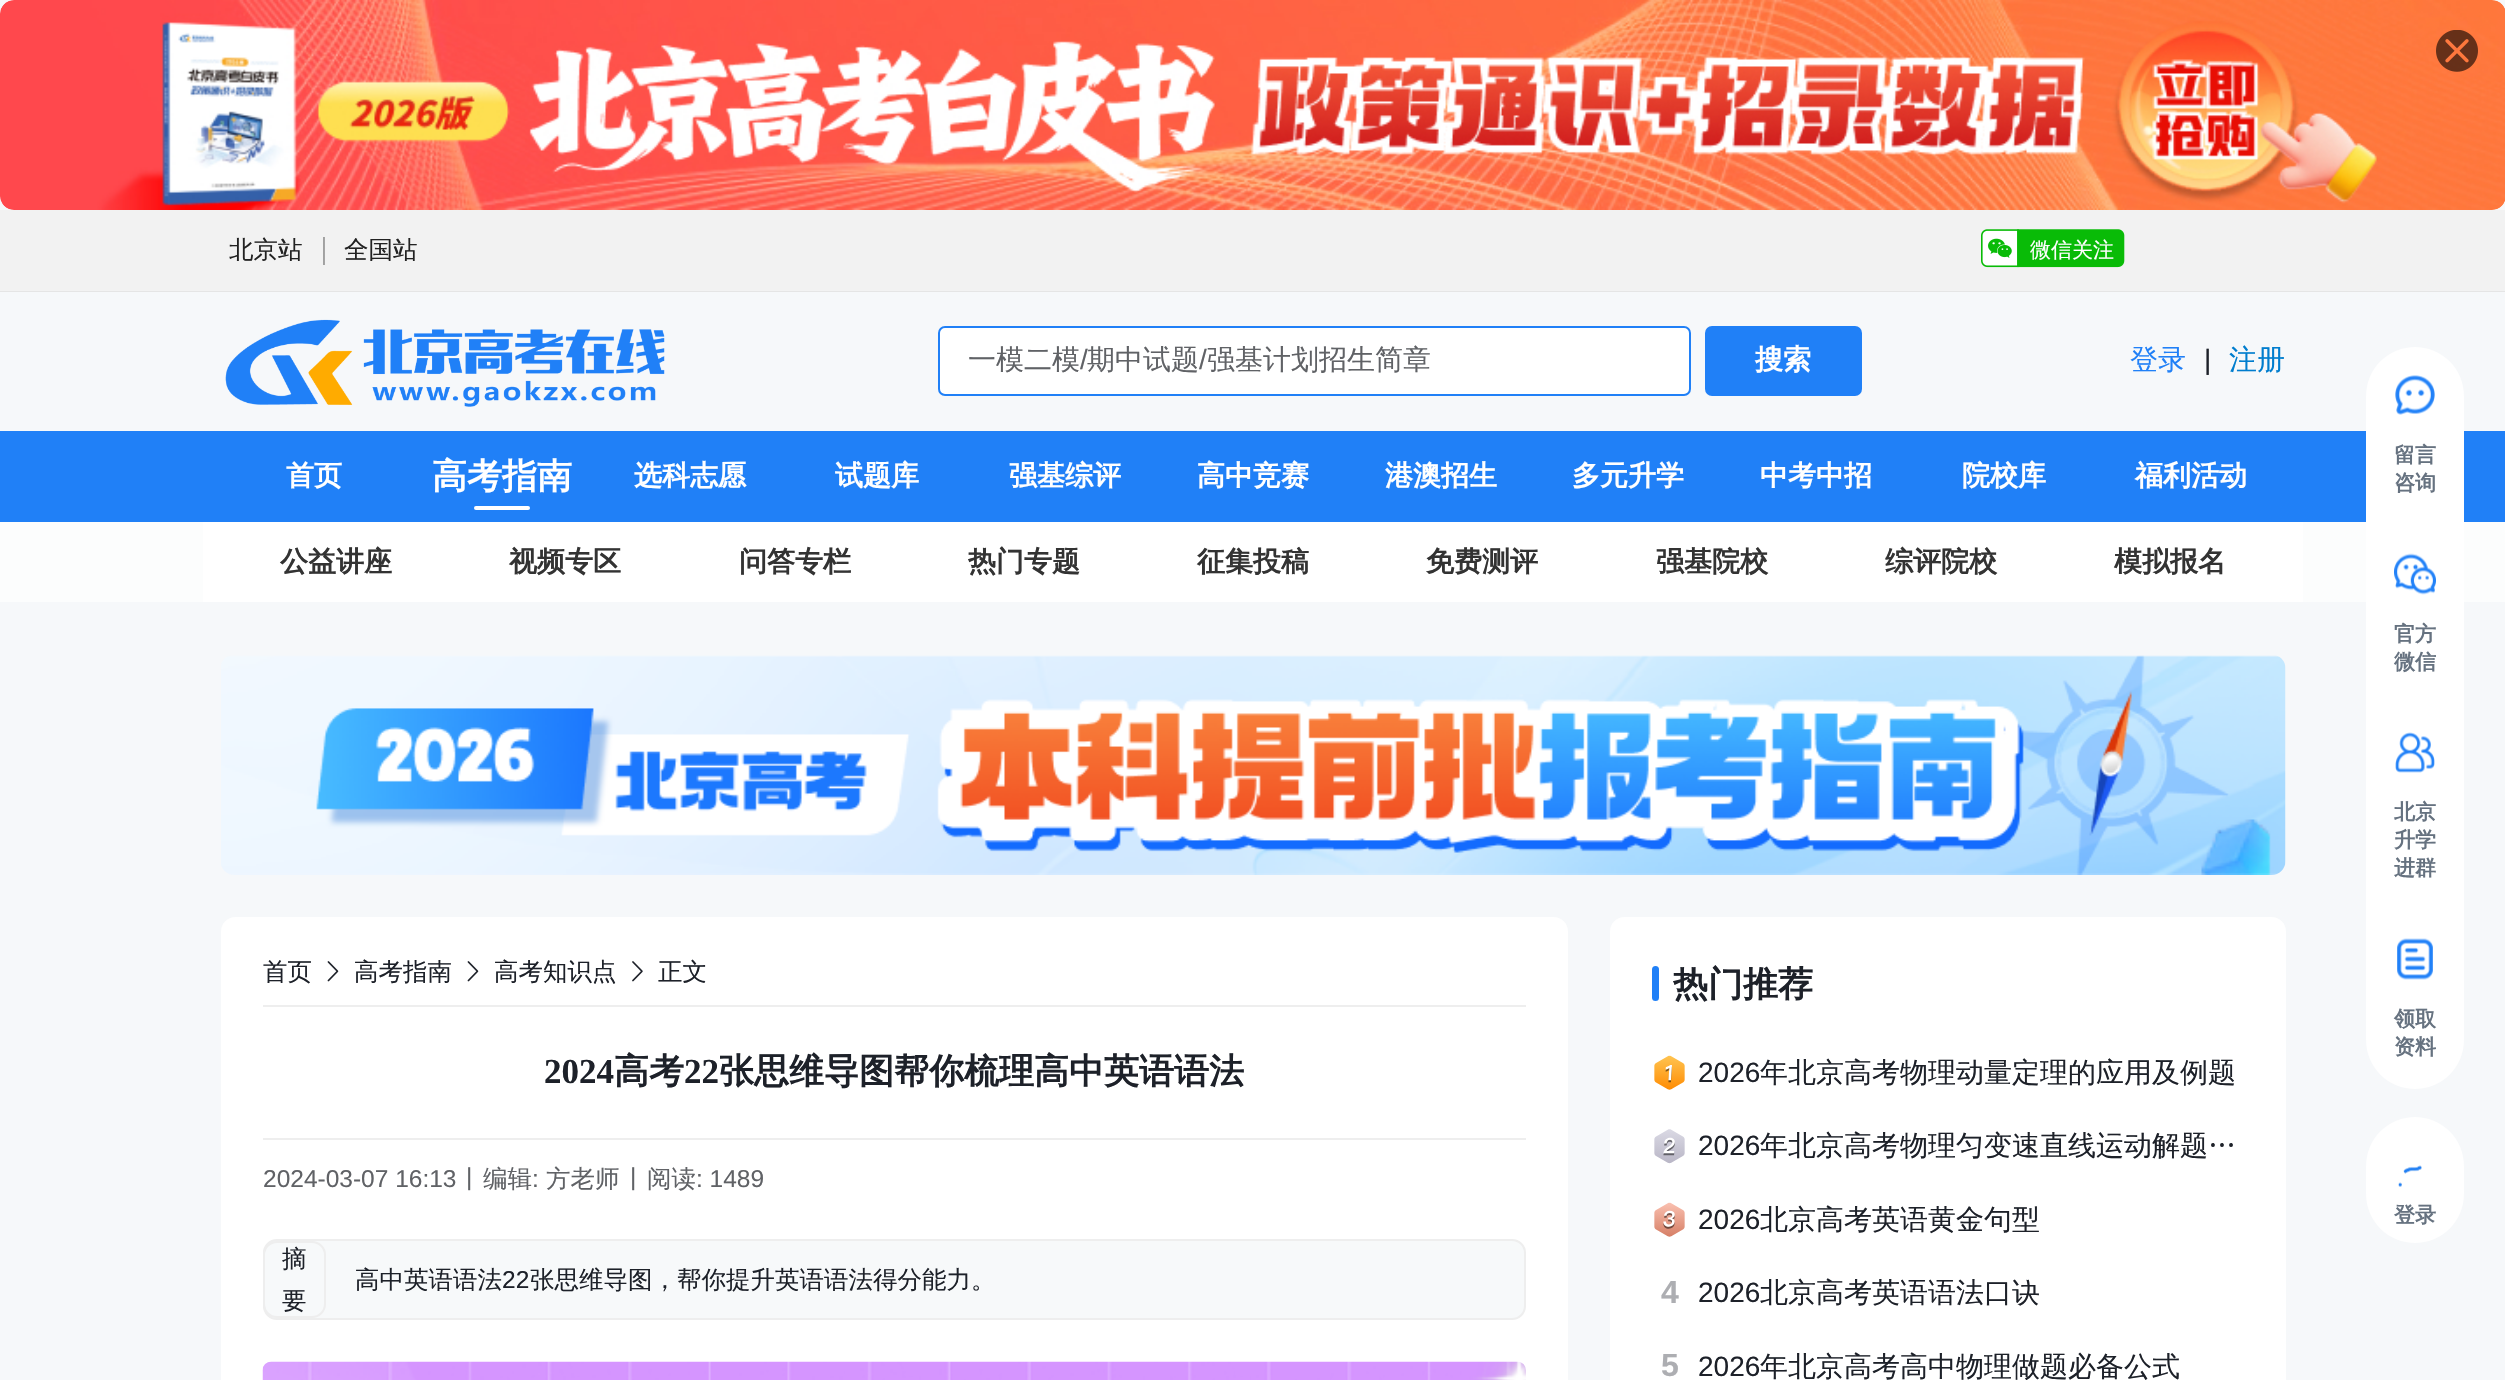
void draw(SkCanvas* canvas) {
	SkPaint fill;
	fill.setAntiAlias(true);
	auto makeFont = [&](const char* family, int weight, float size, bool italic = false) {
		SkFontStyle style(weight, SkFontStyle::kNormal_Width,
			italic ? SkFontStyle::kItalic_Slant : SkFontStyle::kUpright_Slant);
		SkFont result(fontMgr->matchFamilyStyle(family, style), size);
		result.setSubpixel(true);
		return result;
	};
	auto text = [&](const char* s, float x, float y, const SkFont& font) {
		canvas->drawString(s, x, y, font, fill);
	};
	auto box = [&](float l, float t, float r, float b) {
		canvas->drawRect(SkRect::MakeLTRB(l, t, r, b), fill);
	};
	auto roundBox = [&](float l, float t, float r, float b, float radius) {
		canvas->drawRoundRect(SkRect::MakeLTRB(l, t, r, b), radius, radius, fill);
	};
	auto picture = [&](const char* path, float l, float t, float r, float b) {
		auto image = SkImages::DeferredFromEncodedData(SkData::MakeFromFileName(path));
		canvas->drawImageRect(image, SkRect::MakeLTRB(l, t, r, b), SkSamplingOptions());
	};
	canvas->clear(0xFFF6F8FA);
	picture("image0.png", 0, 0, 2505, 210);
	picture("image1.png", 2436, 30, 2478, 72);
	fill.setColor(0xFFE5E5E5);
	box(0, 291, 2505, 292);
	fill.setColor(0xFFF2F2F2);
	box(0, 210, 2505, 291);
	picture("image2.png", 1981, 229, 2125, 268);
	picture("image3.png", 225, 319, 665, 407);
	fill.setColor(0xFFFFFFFF);
	canvas->drawRoundRect(SkRect::MakeLTRB(939, 327, 1690, 395), 6, 6, fill);
	fill.setStyle(SkPaint::kStroke_Style);
	fill.setStrokeWidth(2);
	fill.setColor(0xFF2080F7);
	canvas->drawRoundRect(SkRect::MakeLTRB(939, 327, 1690, 395), 6, 6, fill);
	fill.setStyle(SkPaint::kFill_Style);
	roundBox(1705, 326, 1862, 396, 7);
	box(0, 431, 2505, 522);
	fill.setColor(0xFFFFFFFF);
	roundBox(474, 506, 530, 510, 2);
	fill.setColor(0xFFFCFDFD);
	box(0, 522, 2505, 602);
	fill.setColor(0xFFFFFFFF);
	box(203, 522, 2303, 602);
	picture("image4.png", 221, 655, 2286, 875);
	canvas->drawPath(SkPathBuilder().moveTo(235, 917).lineTo(1554, 917).cubicTo(1561.5f, 917, 1568, 923.5f, 1568, 931).lineTo(1568, 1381).lineTo(221, 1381).lineTo(221, 931).cubicTo(221, 923.5f, 227.5f, 917, 235, 917).close().detach(), fill);
	picture("image5.png", 327, 961, 339, 982);
	picture("image5.png", 467, 961, 479, 982);
	picture("image6.png", 632, 961, 643, 982);
	fill.setColor(0xFFEEEEEE);
	box(263, 1005, 1526, 1007);
	box(263, 1138, 1526, 1140);
	fill.setColor(0xFFF7F9FA);
	canvas->drawRoundRect(SkRect::MakeLTRB(264, 1240, 1525, 1319), 13, 13, fill);
	fill.setStyle(SkPaint::kStroke_Style);
	fill.setColor(0xFFEEEEEE);
	canvas->drawRoundRect(SkRect::MakeLTRB(264, 1240, 1525, 1319), 13, 13, fill);
	canvas->drawRoundRect(SkRect::MakeLTRB(264, 1242, 325, 1317), 13, 13, fill);
	picture("image7.png", 262, 1361, 1526, 1380);
	fill.setStyle(SkPaint::kFill_Style);
	fill.setColor(0xFFFFFFFF);
	canvas->drawPath(SkPathBuilder().moveTo(1624, 917).lineTo(2272, 917).cubicTo(2279.5f, 917, 2286, 923.5f, 2286, 931).lineTo(2286, 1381).lineTo(1610, 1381).lineTo(1610, 931).cubicTo(1610, 923.5f, 1616.5f, 917, 1624, 917).close().detach(), fill);
	fill.setColor(0xFF2080F7);
	roundBox(1652, 966, 1659, 1001, 3.5f);
	picture("image8.png", 1654, 1055, 1685, 1090);
	picture("image9.png", 1654, 1129, 1685, 1164);
	picture("image10.png", 1654, 1202, 1685, 1237);
	fill.setColor(0xFFFFFFFF);
	roundBox(2366, 347, 2464, 1089, 49);
	picture("image11.png", 2395, 375, 2435, 415);
	picture("image12.png", 2394, 553, 2436, 595);
	picture("image13.png", 2395, 732, 2435, 773);
	picture("image14.png", 2397, 938, 2433, 980);
	roundBox(2366, 1117, 2464, 1243, 49);
	picture("image15.png", 2398, 1165, 2422, 1187);
	auto font1 = makeFont("WenQuanYi Zen Hei", 500, 24.5f);
	fill.setColor(0xFF222222);
	text("北京站", 229, 258, font1);
	auto font2 = makeFont("WenQuanYi Zen Hei", 500, 28);
	fill.setColor(0xFF999999);
	text("｜", 310, 258, font2);
	fill.setColor(0xFF222222);
	text("全国站", 344, 258, font1);
	auto font3 = makeFont("WenQuanYi Zen Hei", 500, 21);
	fill.setColor(0xFFFFFFFF);
	text("微信关注", 2030, 257, font3);
	fill.setColor(0xFF606266);
	text("一模二模", 968, 369, font2);
	auto font4 = makeFont("Liberation Sans", 400, 28);
	text("/", 1080, 369, font4);
	text("期中试题", 1087, 369, font2);
	text("/", 1199, 369, font4);
	text("强基计划招生简章", 1207, 369, font2);
	auto font5 = makeFont("WenQuanYi Zen Hei", 700, 28);
	fill.setColor(0xFFFFFFFF);
	text("搜索", 1755, 369, font5);
	fill.setColor(0xFF2080F7);
	text("登录", 2130, 369, font2);
	fill.setColor(0xFF1D2129);
	text("|", 2204, 369, font4);
	fill.setColor(0xFF007DCE);
	text("注册", 2229, 369, font2);
	fill.setColor(0xFFFFFFFF);
	text("首页", 286, 485, font5);
	auto font6 = makeFont("WenQuanYi Zen Hei", 700, 35);
	text("高考指南", 432, 488, font6);
	text("选科志愿", 634, 485, font5);
	text("试题库", 835, 485, font5);
	text("强基综评", 1009, 485, font5);
	text("高中竞赛", 1197, 485, font5);
	text("港澳招生", 1385, 485, font5);
	text("多元升学", 1572, 485, font5);
	text("中考中招", 1760, 485, font5);
	text("院校库", 1962, 485, font5);
	text("福利活动", 2135, 485, font5);
	fill.setColor(0xFF333333);
	text("公益讲座", 280, 571, font5);
	text("视频专区", 509, 571, font5);
	text("问答专栏", 739, 571, font5);
	text("热门专题", 968, 571, font5);
	text("征集投稿", 1197, 571, font5);
	text("免费测评", 1426, 571, font5);
	text("强基院校", 1656, 571, font5);
	text("综评院校", 1885, 571, font5);
	text("模拟报名", 2114, 571, font5);
	fill.setColor(0xFF1D2129);
	text("首页", 263, 980, font1);
	text("高考指南", 354, 980, font1);
	text("高考知识点", 494, 980, font1);
	text("正文", 658, 980, font1);
	auto font7 = makeFont("Liberation Serif", 700, 35);
	text("2024", 544, 1083, font7);
	text("高考", 614, 1083, font6);
	text("22", 684, 1083, font7);
	text("张思维导图帮你梳理高中英语语法", 719, 1083, font6);
	auto font8 = makeFont("Liberation Sans", 400, 24.5f);
	fill.setColor(0xFF606266);
	text("2024-03-07 16:13", 263, 1187, font8);
	text("|", 466, 1185, font8);
	text("编辑", 483, 1187, font1);
	text(":", 532, 1187, font8);
	text("方老师", 546, 1187, font1);
	text("|", 630, 1185, font8);
	text("阅读", 647, 1187, font1);
	text(": 1489", 696, 1187, font8);
	fill.setColor(0xFF1D2129);
	text("摘", 282, 1267, font1);
	text("要", 282, 1309, font1);
	text("高中英语语法", 355, 1288, font1);
	text("22", 502, 1288, font8);
	text("张思维导图，帮你提升英语语法得分能力。", 530, 1288, font1);
	text("热门推荐", 1673, 996, font6);
	text("2026", 1698, 1082, font4);
	text("年北京高考物理动量定理的应用及例题", 1760, 1082, font2);
	text("2026", 1698, 1155, font4);
	text("年北京高考物理匀变速直线运动解题…", 1760, 1155, font2);
	text("2026", 1698, 1229, font4);
	text("北京高考英语黄金句型", 1760, 1229, font2);
	auto font9 = makeFont("Liberation Sans", 700, 32);
	fill.setColor(0xFFADAEB2);
	text("4", 1661, 1303, font9);
	fill.setColor(0xFF1D2129);
	text("2026", 1698, 1302, font4);
	text("北京高考英语语法口诀", 1760, 1302, font2);
	fill.setColor(0xFFADAEB2);
	text("5", 1661, 1376, font9);
	fill.setColor(0xFF1D2129);
	text("2026", 1698, 1376, font4);
	text("年北京高考高中物理做题必备公式", 1760, 1376, font2);
	auto font10 = makeFont("WenQuanYi Zen Hei", 700, 21);
	fill.setColor(0xFF667280);
	text("留言", 2394, 462, font10);
	text("咨询", 2394, 490, font10);
	text("官方", 2394, 641, font10);
	text("微信", 2394, 669, font10);
	text("北京", 2394, 819, font10);
	text("升学", 2394, 847, font10);
	text("进群", 2394, 875, font10);
	text("领取", 2394, 1026, font10);
	text("资料", 2394, 1054, font10);
	text("登录", 2394, 1222, font10);
}
